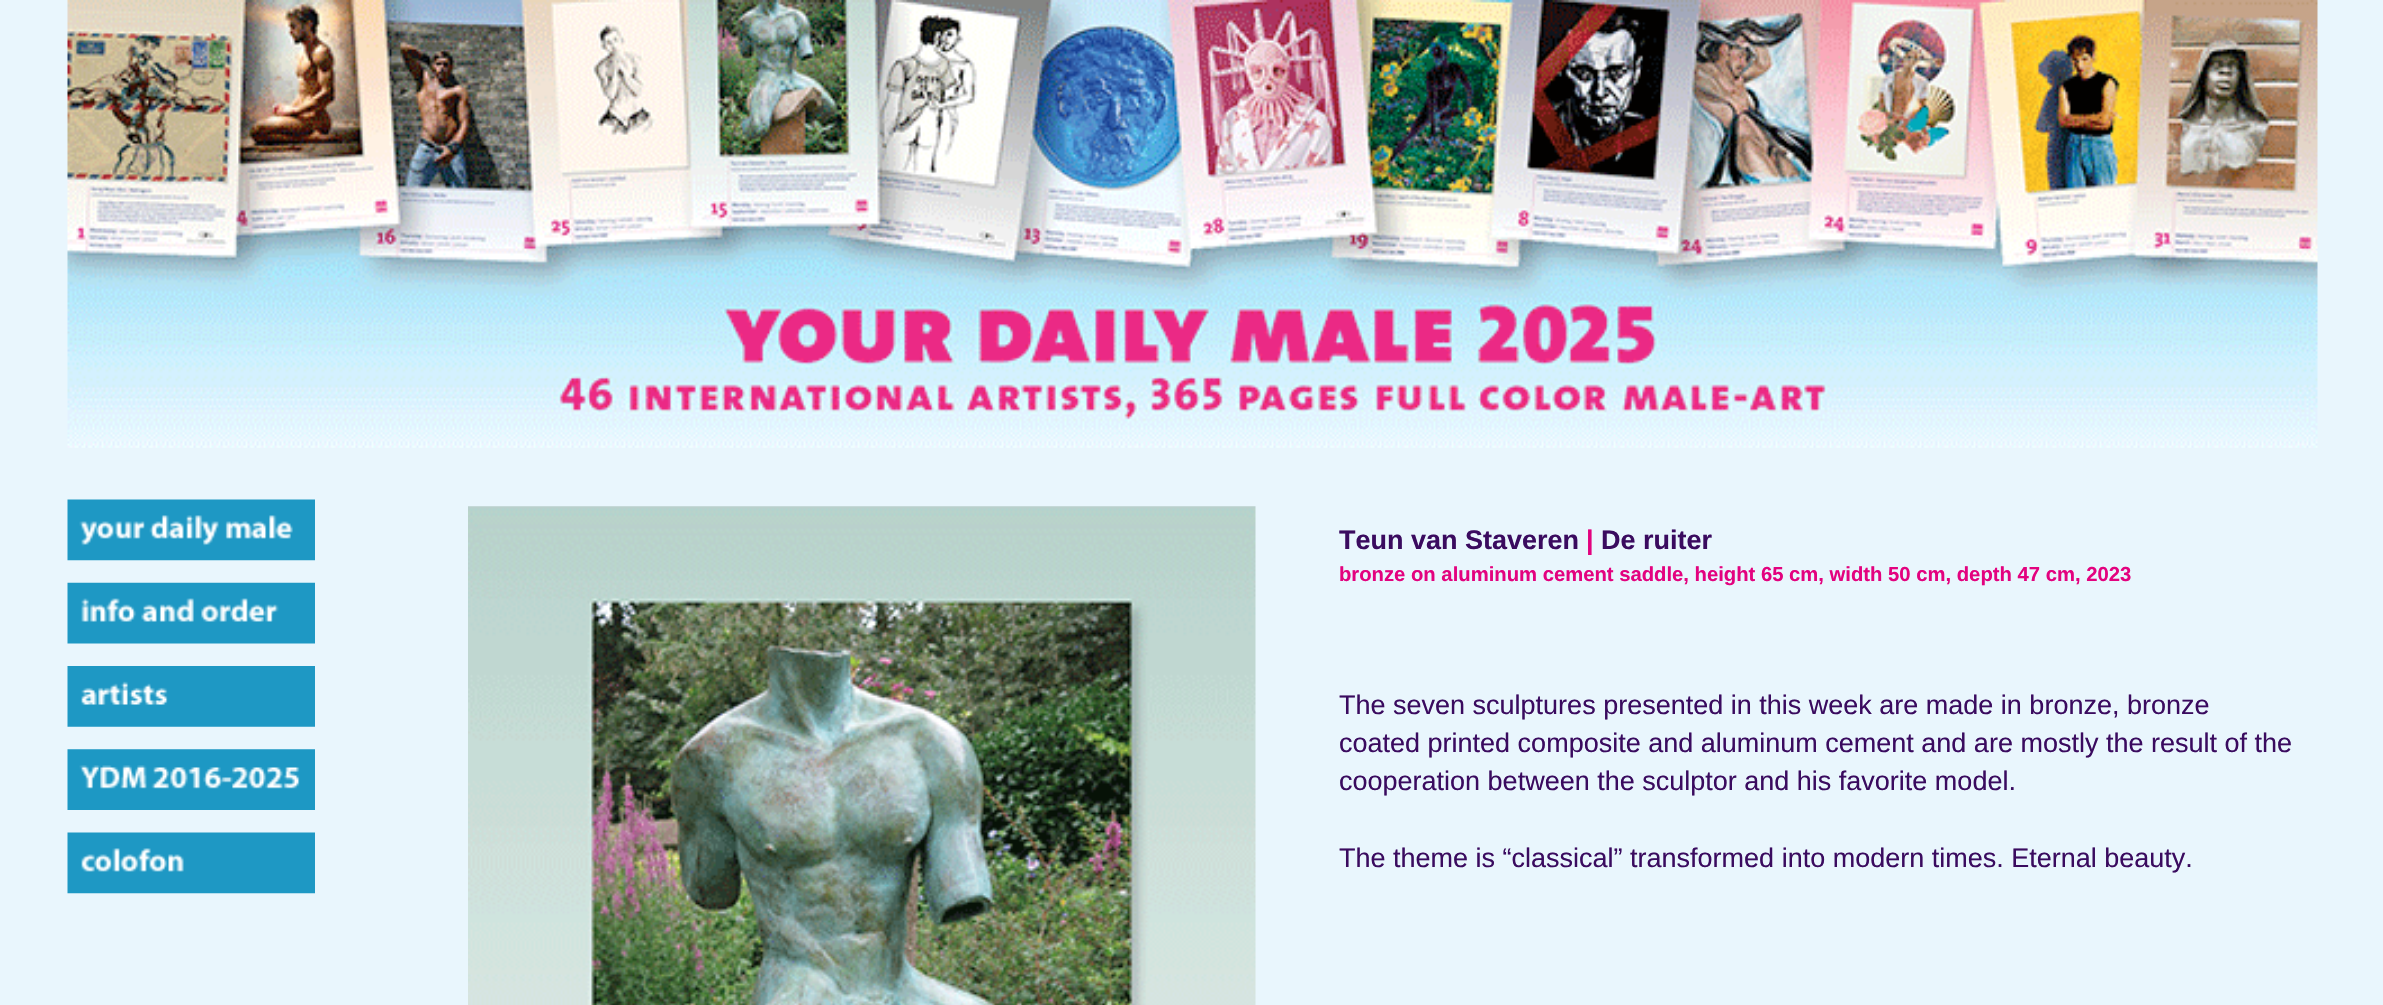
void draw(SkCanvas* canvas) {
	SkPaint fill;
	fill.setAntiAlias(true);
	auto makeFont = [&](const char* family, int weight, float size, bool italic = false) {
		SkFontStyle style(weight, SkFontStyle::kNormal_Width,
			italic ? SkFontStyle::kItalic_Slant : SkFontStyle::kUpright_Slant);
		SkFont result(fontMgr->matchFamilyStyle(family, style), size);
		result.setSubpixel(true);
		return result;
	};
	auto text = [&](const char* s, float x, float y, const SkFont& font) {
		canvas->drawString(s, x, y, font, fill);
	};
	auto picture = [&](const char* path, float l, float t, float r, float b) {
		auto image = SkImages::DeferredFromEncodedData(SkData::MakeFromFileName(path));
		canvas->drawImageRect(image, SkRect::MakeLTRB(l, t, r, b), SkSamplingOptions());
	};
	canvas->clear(0xFFE9F6FD);
	picture("image0.png", 67, 0, 2318, 448);
	picture("image1.png", 67, 499, 315, 561);
	picture("image2.png", 67, 582, 315, 644);
	picture("image3.png", 67, 666, 315, 727);
	picture("image4.png", 67, 749, 315, 810);
	picture("image5.png", 67, 832, 315, 894);
	picture("image6.png", 468, 506, 1256, 1005);
	auto font1 = makeFont("Liberation Sans", 700, 27);
	fill.setColor(0xFF3A0B5F);
	text("Teun van Staveren", 1339, 549, font1);
	fill.setColor(0xFFE3027F);
	text("|", 1586, 549, font1);
	fill.setColor(0xFF3A0B5F);
	text("De ruiter", 1601, 549, font1);
	auto font2 = makeFont("Liberation Sans", 700, 20.25f);
	fill.setColor(0xFFE3027F);
	text("bronze on aluminum cement saddle, height 65 cm, width 50 cm, depth 47 cm, 2023", 1339, 581, font2);
	auto font3 = makeFont("Liberation Sans", 400, 27);
	fill.setColor(0xFF3A0B5F);
	text("The seven sculptures presented in this week are made in bronze, bronze", 1339, 714, font3);
	text("coated printed composite and aluminum cement and are mostly the result of the", 1339, 752, font3);
	text("cooperation between the sculptor and his favorite model.", 1339, 790, font3);
	text("The theme is “classical” transformed into modern times. Eternal beauty.", 1339, 867, font3);
}
